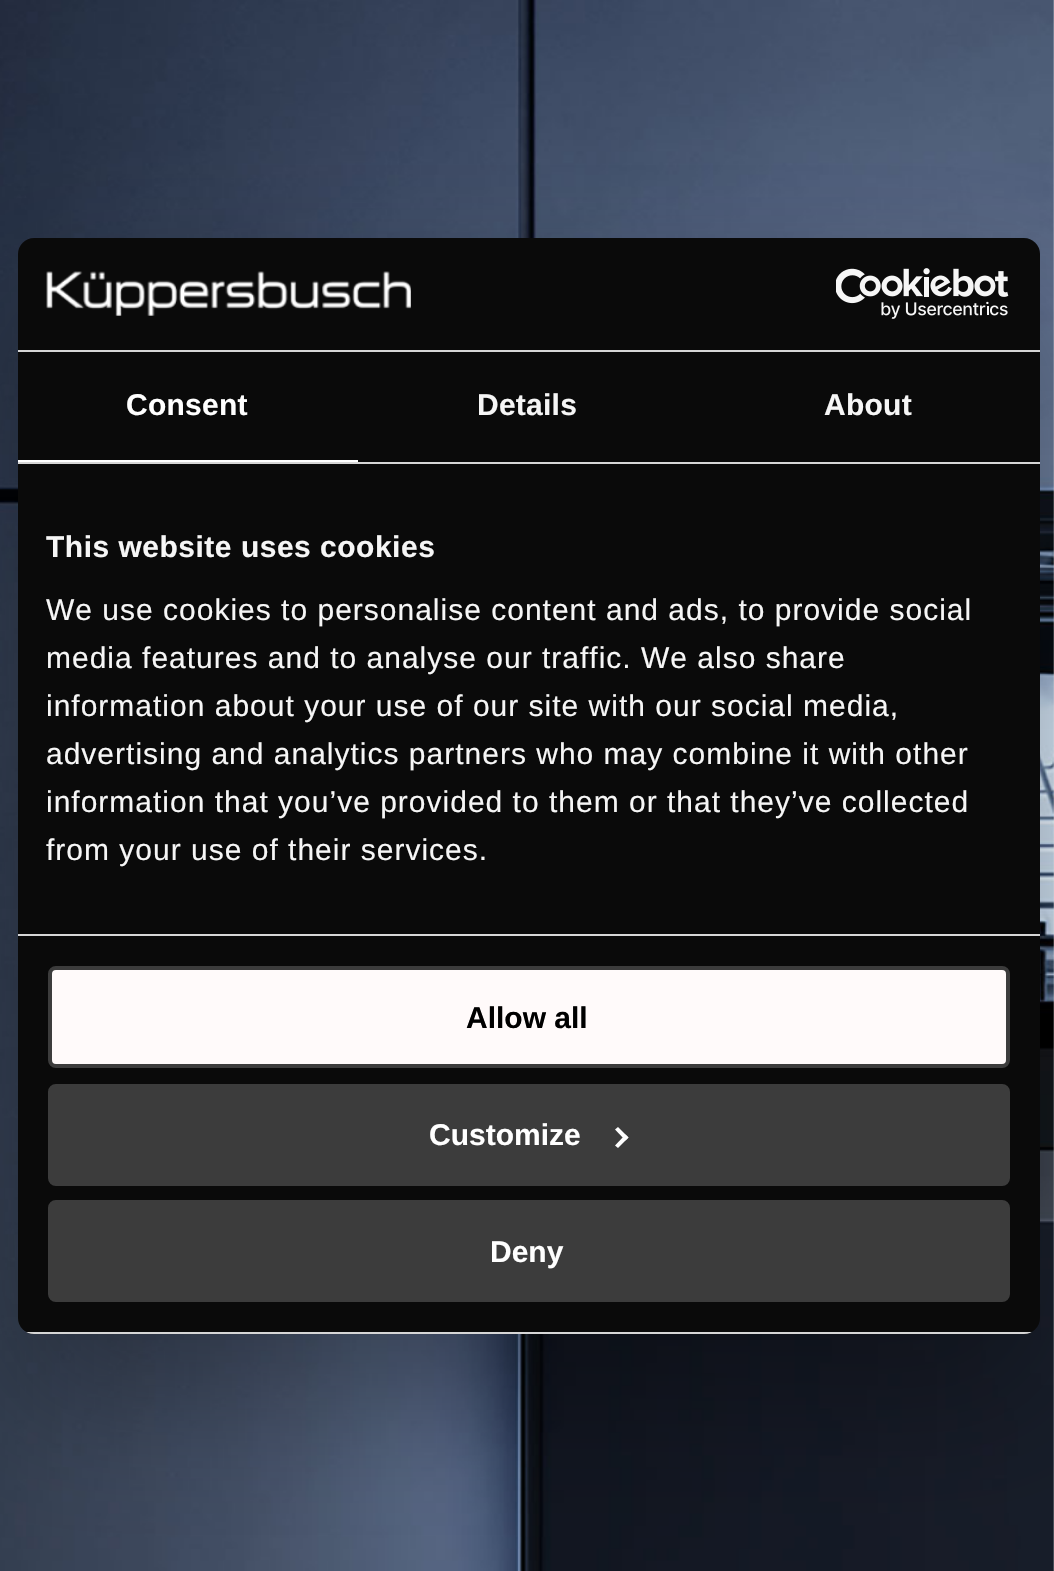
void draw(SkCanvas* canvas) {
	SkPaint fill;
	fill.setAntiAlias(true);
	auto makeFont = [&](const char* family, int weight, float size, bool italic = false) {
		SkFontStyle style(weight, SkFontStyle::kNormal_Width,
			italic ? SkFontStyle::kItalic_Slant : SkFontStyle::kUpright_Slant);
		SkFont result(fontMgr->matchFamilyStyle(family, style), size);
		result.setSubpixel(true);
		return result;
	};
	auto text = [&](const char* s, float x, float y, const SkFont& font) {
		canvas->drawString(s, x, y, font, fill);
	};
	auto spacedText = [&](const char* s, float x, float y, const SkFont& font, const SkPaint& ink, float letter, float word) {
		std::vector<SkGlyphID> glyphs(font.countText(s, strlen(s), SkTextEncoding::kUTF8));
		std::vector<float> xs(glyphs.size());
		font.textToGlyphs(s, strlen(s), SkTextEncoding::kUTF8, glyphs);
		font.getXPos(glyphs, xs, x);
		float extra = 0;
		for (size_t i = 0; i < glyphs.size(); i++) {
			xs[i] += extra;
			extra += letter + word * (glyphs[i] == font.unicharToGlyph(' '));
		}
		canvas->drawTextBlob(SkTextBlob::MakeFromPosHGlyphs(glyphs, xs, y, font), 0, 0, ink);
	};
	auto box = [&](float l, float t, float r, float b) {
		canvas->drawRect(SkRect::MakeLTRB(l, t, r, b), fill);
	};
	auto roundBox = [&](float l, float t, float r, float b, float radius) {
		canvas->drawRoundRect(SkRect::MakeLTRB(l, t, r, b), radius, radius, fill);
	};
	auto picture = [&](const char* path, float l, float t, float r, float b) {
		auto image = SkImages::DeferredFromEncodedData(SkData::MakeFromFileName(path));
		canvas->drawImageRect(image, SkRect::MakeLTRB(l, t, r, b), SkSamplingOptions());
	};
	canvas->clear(0xFFFFFFFF);
	picture("image0.png", 0, 0, 1054, 1571);
	fill.setColor(0x4D000000);
	fill.setMaskFilter(SkMaskFilter::MakeBlur(kNormal_SkBlurStyle, 68));
	canvas->drawRoundRect(SkRect::MakeLTRB(18, 302, 1040, 1398), 16, 16, fill);
	fill.setMaskFilter(nullptr);
	fill.setColor(0xFF0A0A0A);
	roundBox(18, 238, 1040, 1334, 16);
	fill.setColor(0xFFD6D6D6);
	box(18, 350, 1040, 352);
	picture("image1.png", 46, 271, 411, 316);
	picture("image2.png", 836, 268, 1009, 319);
	box(18, 462, 1040, 464);
	fill.setColor(0xFFFFFFFF);
	box(18, 460, 358, 462);
	fill.setColor(0xFFD6D6D6);
	box(18, 934, 1040, 936);
	canvas->save();
	canvas->clipPath(SkPathBuilder().moveTo(34, 238).lineTo(1024, 238).cubicTo(1033, 238, 1040, 245, 1040, 254).lineTo(1040, 1318).cubicTo(1040, 1327, 1033, 1334, 1024, 1334).lineTo(34, 1334).cubicTo(25, 1334, 18, 1327, 18, 1318).lineTo(18, 254).cubicTo(18, 245, 25, 238, 34, 238).close().detach(), true);
	box(18, 1332, 1040, 1334);
	canvas->restore();
	fill.setColor(0xFFFFFAFA);
	canvas->drawRoundRect(SkRect::MakeLTRB(50, 968, 1008, 1066), 6, 6, fill);
	fill.setStyle(SkPaint::kStroke_Style);
	fill.setStrokeWidth(4);
	fill.setColor(0xFF3C3C3C);
	canvas->drawRoundRect(SkRect::MakeLTRB(50, 968, 1008, 1066), 6, 6, fill);
	fill.setStyle(SkPaint::kFill_Style);
	canvas->drawRoundRect(SkRect::MakeLTRB(50, 1086, 1008, 1184), 6, 6, fill);
	fill.setStyle(SkPaint::kStroke_Style);
	canvas->drawRoundRect(SkRect::MakeLTRB(50, 1086, 1008, 1184), 6, 6, fill);
	fill.setStyle(SkPaint::kFill_Style);
	fill.setColor(0xFFFFFFFF);
	canvas->drawPath(SkPathBuilder().moveTo(618, 1127).lineTo(628.5f, 1137.5f).lineTo(625.5f, 1140.5f).lineTo(615, 1129.5f).close().detach(), fill);
	canvas->drawPath(SkPathBuilder().moveTo(625.5f, 1134.5f).lineTo(628.5f, 1137.5f).lineTo(618, 1148).lineTo(615, 1145.5f).close().detach(), fill);
	fill.setColor(0xFF3C3C3C);
	canvas->drawRoundRect(SkRect::MakeLTRB(50, 1202, 1008, 1300), 6, 6, fill);
	fill.setStyle(SkPaint::kStroke_Style);
	canvas->drawRoundRect(SkRect::MakeLTRB(50, 1202, 1008, 1300), 6, 6, fill);
	auto font1 = makeFont("Liberation Sans", 700, 30);
	fill.setStyle(SkPaint::kFill_Style);
	fill.setColor(0xFFFFFFFF);
	spacedText("Consent", 126, 415, font1, fill, 0.25f, 0);
	fill.setColor(0xFFF6F6F6);
	spacedText("Details", 477, 415, font1, fill, 0.25f, 0);
	spacedText("About", 824, 415, font1, fill, 0.25f, 0);
	spacedText("This website uses cookies", 46, 557, font1, fill, 0.5f, 0);
	auto font2 = makeFont("Liberation Sans", 400, 30);
	spacedText("We use cookies to personalise content and ads, to provide social", 46, 620, font2, fill, 1, 0);
	spacedText("media features and to analyse our traffic. We also share", 46, 668, font2, fill, 1, 0);
	spacedText("information about your use of our site with our social media,", 46, 716, font2, fill, 1, 0);
	spacedText("advertising and analytics partners who may combine it with other", 46, 764, font2, fill, 1, 0);
	spacedText("information that you’ve provided to them or that they’ve collected", 46, 812, font2, fill, 1, 0);
	spacedText("from your use of their services.", 46, 860, font2, fill, 1, 0);
	fill.setColor(0xFF000000);
	text("Allow all", 466, 1028, font1);
	fill.setColor(0xFFFFFFFF);
	text("Customize", 429, 1145, font1);
	text("Deny", 490, 1262, font1);
}
